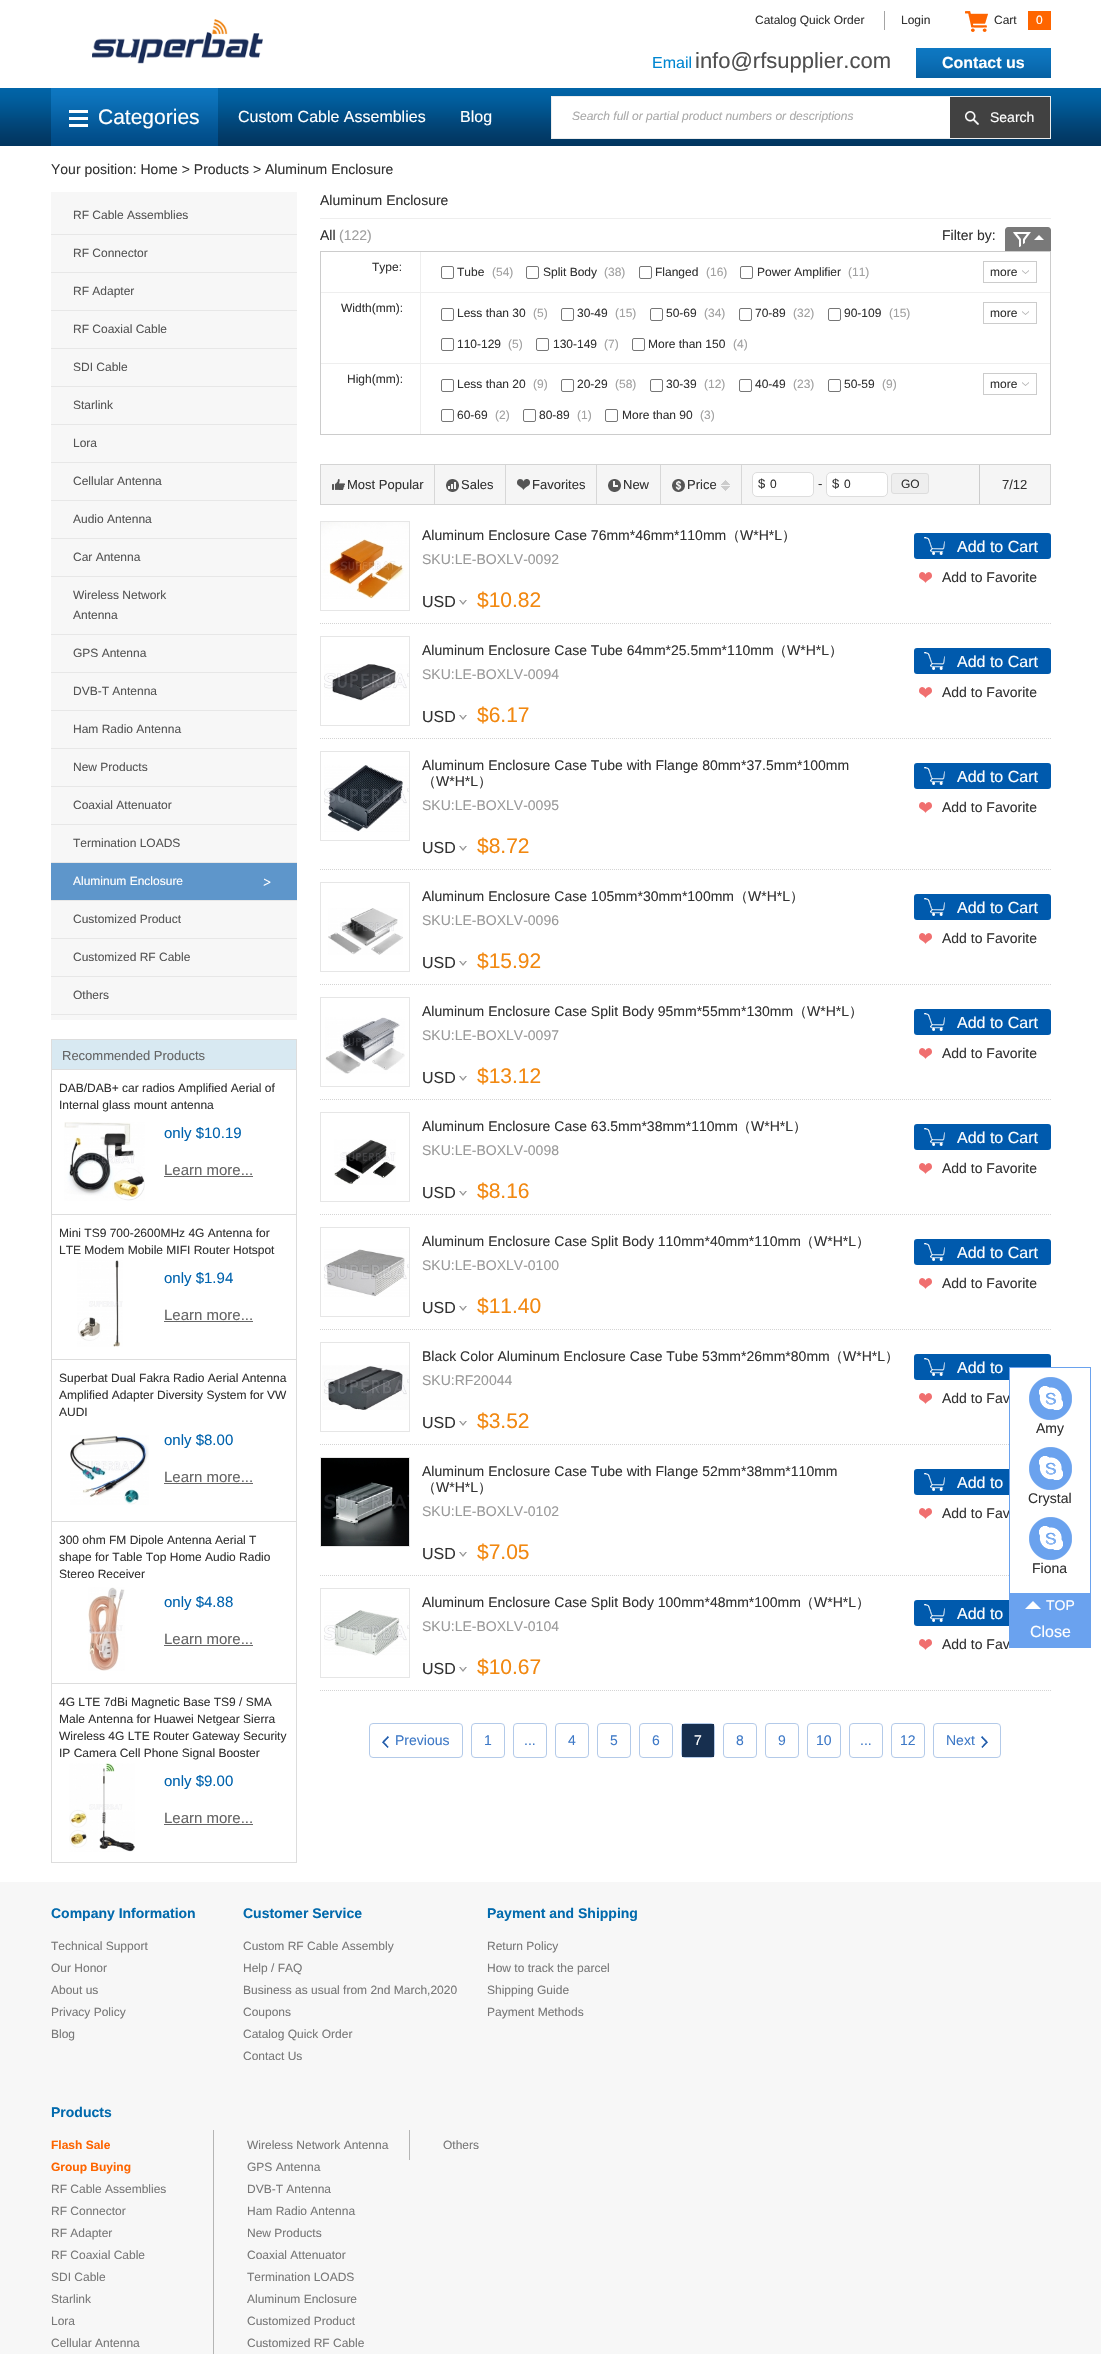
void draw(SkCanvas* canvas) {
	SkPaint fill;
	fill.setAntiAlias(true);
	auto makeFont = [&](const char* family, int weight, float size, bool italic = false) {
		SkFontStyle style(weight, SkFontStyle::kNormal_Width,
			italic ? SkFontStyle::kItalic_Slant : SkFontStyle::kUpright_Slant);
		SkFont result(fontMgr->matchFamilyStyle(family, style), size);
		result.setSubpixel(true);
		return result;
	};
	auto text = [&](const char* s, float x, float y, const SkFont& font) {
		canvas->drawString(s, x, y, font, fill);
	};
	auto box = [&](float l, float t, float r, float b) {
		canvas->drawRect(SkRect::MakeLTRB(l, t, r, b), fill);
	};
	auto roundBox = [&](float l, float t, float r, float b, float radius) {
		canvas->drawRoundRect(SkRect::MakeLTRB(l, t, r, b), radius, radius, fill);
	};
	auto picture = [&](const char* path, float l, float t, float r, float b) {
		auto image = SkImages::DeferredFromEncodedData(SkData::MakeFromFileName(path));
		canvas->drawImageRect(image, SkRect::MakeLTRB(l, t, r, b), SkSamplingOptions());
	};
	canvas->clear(0xFFFFFFFF);
	picture("image0.png", 92, 19, 263, 64);
	fill.setColor(0xFFA4A4A4);
	box(884, 11, 885, 30);
	picture("image1.png", 965, 11, 988, 32);
	fill.setColor(0xFFFE6500);
	box(1028, 11, 1051, 30);
	picture("image2.png", 916, 48, 1051, 78);
	picture("image3.png", 0, 88, 1101, 146);
	picture("image4.png", 51, 88, 218, 146);
	picture("image5.png", 69, 110, 88, 127);
	fill.setColor(0xFFFFFFFF);
	box(552, 97, 950, 138);
	fill.setStyle(SkPaint::kStroke_Style);
	fill.setStrokeWidth(1);
	fill.setColor(0xFFEDEDED);
	canvas->drawRect(SkRect::MakeLTRB(551.5f, 96.5f, 1050.5f, 138.5f), fill);
	fill.setStyle(SkPaint::kFill_Style);
	fill.setColor(0xFF414141);
	box(950, 97, 1050, 138);
	picture("image6.png", 965, 111, 979, 125);
	fill.setColor(0xFFF7F7F7);
	box(51, 192, 297, 1020);
	fill.setColor(0xFFE7E7E7);
	box(51, 234, 297, 235);
	box(51, 272, 297, 273);
	box(51, 310, 297, 311);
	box(51, 348, 297, 349);
	box(51, 386, 297, 387);
	box(51, 424, 297, 425);
	box(51, 462, 297, 463);
	box(51, 500, 297, 501);
	box(51, 538, 297, 539);
	box(51, 576, 297, 577);
	box(51, 634, 297, 635);
	box(51, 672, 297, 673);
	box(51, 710, 297, 711);
	box(51, 748, 297, 749);
	box(51, 786, 297, 787);
	box(51, 824, 297, 825);
	box(51, 862, 297, 863);
	box(51, 900, 297, 901);
	fill.setColor(0xFF5E96CB);
	box(51, 863, 297, 900);
	picture("image7.png", 263, 878, 271, 886);
	fill.setColor(0xFFE7E7E7);
	box(51, 938, 297, 939);
	box(51, 976, 297, 977);
	box(51, 1014, 297, 1015);
	fill.setStyle(SkPaint::kStroke_Style);
	fill.setColor(0xFFDDDDDD);
	canvas->drawRect(SkRect::MakeLTRB(51.5f, 1039.5f, 296.5f, 1862.5f), fill);
	fill.setStyle(SkPaint::kFill_Style);
	fill.setColor(0xFFD8E9F2);
	box(52, 1040, 296, 1069);
	fill.setColor(0xFFDDDDDD);
	box(52, 1069, 296, 1070);
	picture("image8.png", 64, 1122, 145, 1201);
	fill.setColor(0xFF666666);
	box(164, 1176, 253, 1177);
	fill.setColor(0xFFDDDDDD);
	box(52, 1214, 296, 1215);
	picture("image9.png", 77, 1260, 123, 1347);
	fill.setColor(0xFF666666);
	box(164, 1321, 253, 1322);
	fill.setColor(0xFFDDDDDD);
	box(52, 1359, 296, 1360);
	picture("image10.png", 70, 1435, 149, 1505);
	fill.setColor(0xFF666666);
	box(164, 1483, 253, 1484);
	fill.setColor(0xFFDDDDDD);
	box(52, 1521, 296, 1522);
	picture("image11.png", 88, 1587, 125, 1671);
	fill.setColor(0xFF666666);
	box(164, 1645, 253, 1646);
	fill.setColor(0xFFDDDDDD);
	box(52, 1683, 296, 1684);
	picture("image12.png", 69, 1763, 135, 1852);
	fill.setColor(0xFF666666);
	box(164, 1824, 253, 1825);
	fill.setColor(0xFFEEEEEE);
	box(320, 218, 1051, 219);
	fill.setColor(0xFF797979);
	canvas->drawPath(SkPathBuilder().moveTo(1008, 227).lineTo(1048, 227).cubicTo(1049.5f, 227, 1051, 228.5f, 1051, 230).lineTo(1051, 251).lineTo(1005, 251).lineTo(1005, 230).cubicTo(1005, 228.5f, 1006.5f, 227, 1008, 227).close().detach(), fill);
	picture("image13.png", 1013, 232, 1031, 247);
	fill.setColor(0xFFFFFFFF);
	canvas->drawPath(SkPathBuilder().moveTo(1044, 240).lineTo(1034, 240).lineTo(1039, 235).close().detach(), fill);
	fill.setColor(0xFFEEEEEE);
	box(420, 292, 1051, 293);
	box(420, 363, 1051, 364);
	box(420, 363, 421, 435);
	box(320, 363, 421, 364);
	box(420, 292, 421, 364);
	box(320, 292, 421, 293);
	box(420, 251, 421, 293);
	fill.setColor(0xFFCCCCCC);
	box(320, 251, 1051, 252);
	box(1050, 251, 1051, 435);
	box(320, 434, 1051, 435);
	box(320, 251, 321, 435);
	fill.setStyle(SkPaint::kStroke_Style);
	fill.setColor(0xFF767676);
	canvas->drawRoundRect(SkRect::MakeLTRB(441.5f, 266.5f, 453.5f, 278.5f), 1.5f, 1.5f, fill);
	canvas->drawRoundRect(SkRect::MakeLTRB(526.5f, 266.5f, 538.5f, 278.5f), 1.5f, 1.5f, fill);
	canvas->drawRoundRect(SkRect::MakeLTRB(639.5f, 266.5f, 651.5f, 278.5f), 1.5f, 1.5f, fill);
	canvas->drawRoundRect(SkRect::MakeLTRB(740.5f, 266.5f, 752.5f, 278.5f), 1.5f, 1.5f, fill);
	picture("image14.png", 1022, 270, 1029, 274);
	fill.setColor(0xFFCCCCCC);
	canvas->drawRect(SkRect::MakeLTRB(983.5f, 261.5f, 1036.5f, 282.5f), fill);
	fill.setColor(0xFF767676);
	canvas->drawRoundRect(SkRect::MakeLTRB(441.5f, 308.5f, 453.5f, 320.5f), 1.5f, 1.5f, fill);
	canvas->drawRoundRect(SkRect::MakeLTRB(561.5f, 308.5f, 573.5f, 320.5f), 1.5f, 1.5f, fill);
	canvas->drawRoundRect(SkRect::MakeLTRB(650.5f, 308.5f, 662.5f, 320.5f), 1.5f, 1.5f, fill);
	canvas->drawRoundRect(SkRect::MakeLTRB(739.5f, 308.5f, 751.5f, 320.5f), 1.5f, 1.5f, fill);
	canvas->drawRoundRect(SkRect::MakeLTRB(828.5f, 308.5f, 840.5f, 320.5f), 1.5f, 1.5f, fill);
	canvas->drawRoundRect(SkRect::MakeLTRB(441.5f, 338.5f, 453.5f, 350.5f), 1.5f, 1.5f, fill);
	canvas->drawRoundRect(SkRect::MakeLTRB(536.5f, 338.5f, 548.5f, 350.5f), 1.5f, 1.5f, fill);
	canvas->drawRoundRect(SkRect::MakeLTRB(632.5f, 338.5f, 644.5f, 350.5f), 1.5f, 1.5f, fill);
	picture("image14.png", 1022, 311, 1029, 315);
	fill.setColor(0xFFCCCCCC);
	canvas->drawRect(SkRect::MakeLTRB(983.5f, 302.5f, 1036.5f, 323.5f), fill);
	fill.setColor(0xFF767676);
	canvas->drawRoundRect(SkRect::MakeLTRB(441.5f, 379.5f, 453.5f, 391.5f), 1.5f, 1.5f, fill);
	canvas->drawRoundRect(SkRect::MakeLTRB(561.5f, 379.5f, 573.5f, 391.5f), 1.5f, 1.5f, fill);
	canvas->drawRoundRect(SkRect::MakeLTRB(650.5f, 379.5f, 662.5f, 391.5f), 1.5f, 1.5f, fill);
	canvas->drawRoundRect(SkRect::MakeLTRB(739.5f, 379.5f, 751.5f, 391.5f), 1.5f, 1.5f, fill);
	canvas->drawRoundRect(SkRect::MakeLTRB(828.5f, 379.5f, 840.5f, 391.5f), 1.5f, 1.5f, fill);
	canvas->drawRoundRect(SkRect::MakeLTRB(441.5f, 409.5f, 453.5f, 421.5f), 1.5f, 1.5f, fill);
	canvas->drawRoundRect(SkRect::MakeLTRB(523.5f, 409.5f, 535.5f, 421.5f), 1.5f, 1.5f, fill);
	canvas->drawRoundRect(SkRect::MakeLTRB(605.5f, 409.5f, 617.5f, 421.5f), 1.5f, 1.5f, fill);
	picture("image14.png", 1022, 382, 1029, 386);
	fill.setColor(0xFFCCCCCC);
	canvas->drawRect(SkRect::MakeLTRB(983.5f, 373.5f, 1036.5f, 394.5f), fill);
	fill.setStyle(SkPaint::kFill_Style);
	fill.setColor(0xFFF5F5F5);
	canvas->drawRect(SkRect::MakeLTRB(320.5f, 464.5f, 1050.5f, 504.5f), fill);
	fill.setStyle(SkPaint::kStroke_Style);
	fill.setColor(0xFFD4D4D4);
	canvas->drawRect(SkRect::MakeLTRB(320.5f, 464.5f, 1050.5f, 504.5f), fill);
	picture("image15.png", 332, 479, 345, 490);
	fill.setStyle(SkPaint::kFill_Style);
	fill.setColor(0xFFD7D7D7);
	box(434, 465, 435, 504);
	picture("image16.png", 446, 479, 459, 492);
	box(505, 465, 506, 504);
	picture("image17.png", 517, 479, 530, 490);
	box(596, 465, 597, 504);
	picture("image18.png", 608, 479, 621, 492);
	box(660, 465, 661, 504);
	picture("image19.png", 672, 479, 685, 492);
	picture("image20.png", 721, 480, 730, 491);
	box(741, 465, 742, 504);
	fill.setColor(0xFFFFFFFF);
	canvas->drawRoundRect(SkRect::MakeLTRB(752.5f, 472.5f, 813.5f, 496.5f), 4.5f, 4.5f, fill);
	fill.setStyle(SkPaint::kStroke_Style);
	fill.setColor(0xFFDDDDDD);
	canvas->drawRoundRect(SkRect::MakeLTRB(752.5f, 472.5f, 813.5f, 496.5f), 4.5f, 4.5f, fill);
	fill.setStyle(SkPaint::kFill_Style);
	fill.setColor(0xFFFFFFFF);
	canvas->drawRoundRect(SkRect::MakeLTRB(826.5f, 472.5f, 887.5f, 496.5f), 4.5f, 4.5f, fill);
	fill.setStyle(SkPaint::kStroke_Style);
	fill.setColor(0xFFDDDDDD);
	canvas->drawRoundRect(SkRect::MakeLTRB(826.5f, 472.5f, 887.5f, 496.5f), 4.5f, 4.5f, fill);
	fill.setStyle(SkPaint::kFill_Style);
	fill.setColor(0xFFEEEEEE);
	canvas->drawRoundRect(SkRect::MakeLTRB(891.5f, 473.5f, 928.5f, 493.5f), 2.5f, 2.5f, fill);
	fill.setStyle(SkPaint::kStroke_Style);
	fill.setColor(0xFFDDDDDD);
	canvas->drawRoundRect(SkRect::MakeLTRB(891.5f, 473.5f, 928.5f, 493.5f), 2.5f, 2.5f, fill);
	fill.setStyle(SkPaint::kFill_Style);
	fill.setColor(0xFFCCCCCC);
	box(979, 465, 980, 504);
	fill.setStyle(SkPaint::kStroke_Style);
	fill.setColor(0xFFD4D4D4);
	fill.setPathEffect(SkDashPathEffect::Make({{1, 1}}, 0));
	canvas->drawPath(SkPathBuilder().moveTo(320, 623.5f).lineTo(1051, 623.5f).detach(), fill);
	fill.setPathEffect(nullptr);
	fill.setColor(0xFFE6E6E6);
	canvas->drawRect(SkRect::MakeLTRB(320.5f, 521.5f, 409.5f, 610.5f), fill);
	picture("image21.png", 321, 522, 409, 599);
	fill.setStyle(SkPaint::kFill_Style);
	fill.setColor(0xFF005AAD);
	roundBox(914, 533, 1051, 559, 3);
	picture("image22.png", 924, 537, 945, 555);
	picture("image23.png", 919, 572, 932, 583);
	picture("image24.png", 459, 600, 467, 605);
	fill.setStyle(SkPaint::kStroke_Style);
	fill.setColor(0xFFD4D4D4);
	fill.setPathEffect(SkDashPathEffect::Make({{1, 1}}, 0));
	canvas->drawPath(SkPathBuilder().moveTo(320, 738.5f).lineTo(1051, 738.5f).detach(), fill);
	fill.setPathEffect(nullptr);
	fill.setColor(0xFFE6E6E6);
	canvas->drawRect(SkRect::MakeLTRB(320.5f, 636.5f, 409.5f, 725.5f), fill);
	picture("image25.png", 324, 664, 409, 701);
	fill.setStyle(SkPaint::kFill_Style);
	fill.setColor(0xFF005AAD);
	roundBox(914, 648, 1051, 674, 3);
	picture("image22.png", 924, 652, 945, 670);
	picture("image23.png", 919, 687, 932, 698);
	picture("image24.png", 459, 715, 467, 720);
	fill.setStyle(SkPaint::kStroke_Style);
	fill.setColor(0xFFD4D4D4);
	fill.setPathEffect(SkDashPathEffect::Make({{1, 1}}, 0));
	canvas->drawPath(SkPathBuilder().moveTo(320, 869.5f).lineTo(1051, 869.5f).detach(), fill);
	fill.setPathEffect(nullptr);
	fill.setColor(0xFFE6E6E6);
	canvas->drawRect(SkRect::MakeLTRB(320.5f, 751.5f, 409.5f, 840.5f), fill);
	picture("image26.png", 324, 765, 409, 832);
	fill.setStyle(SkPaint::kFill_Style);
	fill.setColor(0xFF005AAD);
	roundBox(914, 763, 1051, 789, 3);
	picture("image22.png", 924, 767, 945, 785);
	picture("image23.png", 919, 802, 932, 813);
	picture("image24.png", 459, 846, 467, 851);
	fill.setStyle(SkPaint::kStroke_Style);
	fill.setColor(0xFFD4D4D4);
	fill.setPathEffect(SkDashPathEffect::Make({{1, 1}}, 0));
	canvas->drawPath(SkPathBuilder().moveTo(320, 984.5f).lineTo(1051, 984.5f).detach(), fill);
	fill.setPathEffect(nullptr);
	fill.setColor(0xFFE6E6E6);
	canvas->drawRect(SkRect::MakeLTRB(320.5f, 882.5f, 409.5f, 971.5f), fill);
	picture("image27.png", 328, 908, 403, 955);
	fill.setStyle(SkPaint::kFill_Style);
	fill.setColor(0xFF005AAD);
	roundBox(914, 894, 1051, 920, 3);
	picture("image22.png", 924, 898, 945, 916);
	picture("image23.png", 919, 933, 932, 944);
	picture("image24.png", 459, 961, 467, 966);
	fill.setStyle(SkPaint::kStroke_Style);
	fill.setColor(0xFFD4D4D4);
	fill.setPathEffect(SkDashPathEffect::Make({{1, 1}}, 0));
	canvas->drawPath(SkPathBuilder().moveTo(320, 1099.5f).lineTo(1051, 1099.5f).detach(), fill);
	fill.setPathEffect(nullptr);
	fill.setColor(0xFFE6E6E6);
	canvas->drawRect(SkRect::MakeLTRB(320.5f, 997.5f, 409.5f, 1086.5f), fill);
	picture("image28.png", 325, 1017, 405, 1074);
	fill.setStyle(SkPaint::kFill_Style);
	fill.setColor(0xFF005AAD);
	roundBox(914, 1009, 1051, 1035, 3);
	picture("image22.png", 924, 1013, 945, 1031);
	picture("image23.png", 919, 1048, 932, 1059);
	picture("image24.png", 459, 1076, 467, 1081);
	fill.setStyle(SkPaint::kStroke_Style);
	fill.setColor(0xFFD4D4D4);
	fill.setPathEffect(SkDashPathEffect::Make({{1, 1}}, 0));
	canvas->drawPath(SkPathBuilder().moveTo(320, 1214.5f).lineTo(1051, 1214.5f).detach(), fill);
	fill.setPathEffect(nullptr);
	fill.setColor(0xFFE6E6E6);
	canvas->drawRect(SkRect::MakeLTRB(320.5f, 1112.5f, 409.5f, 1201.5f), fill);
	picture("image29.png", 334, 1139, 396, 1185);
	fill.setStyle(SkPaint::kFill_Style);
	fill.setColor(0xFF005AAD);
	roundBox(914, 1124, 1051, 1150, 3);
	picture("image22.png", 924, 1128, 945, 1146);
	picture("image23.png", 919, 1163, 932, 1174);
	picture("image24.png", 459, 1191, 467, 1196);
	fill.setStyle(SkPaint::kStroke_Style);
	fill.setColor(0xFFD4D4D4);
	fill.setPathEffect(SkDashPathEffect::Make({{1, 1}}, 0));
	canvas->drawPath(SkPathBuilder().moveTo(320, 1329.5f).lineTo(1051, 1329.5f).detach(), fill);
	fill.setPathEffect(nullptr);
	fill.setColor(0xFFE6E6E6);
	canvas->drawRect(SkRect::MakeLTRB(320.5f, 1227.5f, 409.5f, 1316.5f), fill);
	picture("image30.png", 324, 1249, 409, 1297);
	fill.setStyle(SkPaint::kFill_Style);
	fill.setColor(0xFF005AAD);
	roundBox(914, 1239, 1051, 1265, 3);
	picture("image22.png", 924, 1243, 945, 1261);
	picture("image23.png", 919, 1278, 932, 1289);
	picture("image24.png", 459, 1306, 467, 1311);
	fill.setStyle(SkPaint::kStroke_Style);
	fill.setColor(0xFFD4D4D4);
	fill.setPathEffect(SkDashPathEffect::Make({{1, 1}}, 0));
	canvas->drawPath(SkPathBuilder().moveTo(320, 1444.5f).lineTo(1051, 1444.5f).detach(), fill);
	fill.setPathEffect(nullptr);
	fill.setColor(0xFFE6E6E6);
	canvas->drawRect(SkRect::MakeLTRB(320.5f, 1342.5f, 409.5f, 1431.5f), fill);
	picture("image31.png", 322, 1365, 409, 1410);
	fill.setStyle(SkPaint::kFill_Style);
	fill.setColor(0xFF005AAD);
	roundBox(914, 1354, 1051, 1380, 3);
	picture("image22.png", 924, 1358, 945, 1376);
	picture("image23.png", 919, 1393, 932, 1404);
	picture("image24.png", 459, 1421, 467, 1426);
	fill.setStyle(SkPaint::kStroke_Style);
	fill.setColor(0xFFD4D4D4);
	fill.setPathEffect(SkDashPathEffect::Make({{1, 1}}, 0));
	canvas->drawPath(SkPathBuilder().moveTo(320, 1575.5f).lineTo(1051, 1575.5f).detach(), fill);
	fill.setPathEffect(nullptr);
	fill.setColor(0xFFE6E6E6);
	canvas->drawRect(SkRect::MakeLTRB(320.5f, 1457.5f, 409.5f, 1546.5f), fill);
	picture("image32.png", 321, 1458, 409, 1546);
	fill.setStyle(SkPaint::kFill_Style);
	fill.setColor(0xFF005AAD);
	roundBox(914, 1469, 1051, 1495, 3);
	picture("image22.png", 924, 1473, 945, 1491);
	picture("image23.png", 919, 1508, 932, 1519);
	picture("image24.png", 459, 1552, 467, 1557);
	fill.setStyle(SkPaint::kStroke_Style);
	fill.setColor(0xFFD4D4D4);
	fill.setPathEffect(SkDashPathEffect::Make({{1, 1}}, 0));
	canvas->drawPath(SkPathBuilder().moveTo(320, 1690.5f).lineTo(1051, 1690.5f).detach(), fill);
	fill.setPathEffect(nullptr);
	fill.setColor(0xFFE6E6E6);
	canvas->drawRect(SkRect::MakeLTRB(320.5f, 1588.5f, 409.5f, 1677.5f), fill);
	picture("image33.png", 324, 1610, 409, 1656);
	fill.setStyle(SkPaint::kFill_Style);
	fill.setColor(0xFF005AAD);
	roundBox(914, 1600, 1051, 1626, 3);
	picture("image22.png", 924, 1604, 945, 1622);
	picture("image23.png", 919, 1639, 932, 1650);
	picture("image24.png", 459, 1667, 467, 1672);
	fill.setStyle(SkPaint::kStroke_Style);
	fill.setColor(0xFFB3CAE9);
	canvas->drawRoundRect(SkRect::MakeLTRB(369.5f, 1723.5f, 462.5f, 1757.5f), 3.5f, 3.5f, fill);
	picture("image34.png", 382, 1736, 389, 1748);
	canvas->drawRoundRect(SkRect::MakeLTRB(471.5f, 1723.5f, 504.5f, 1757.5f), 3.5f, 3.5f, fill);
	canvas->drawRoundRect(SkRect::MakeLTRB(513.5f, 1723.5f, 546.5f, 1757.5f), 3.5f, 3.5f, fill);
	canvas->drawRoundRect(SkRect::MakeLTRB(555.5f, 1723.5f, 588.5f, 1757.5f), 3.5f, 3.5f, fill);
	canvas->drawRoundRect(SkRect::MakeLTRB(597.5f, 1723.5f, 630.5f, 1757.5f), 3.5f, 3.5f, fill);
	canvas->drawRoundRect(SkRect::MakeLTRB(639.5f, 1723.5f, 672.5f, 1757.5f), 3.5f, 3.5f, fill);
	canvas->drawRoundRect(SkRect::MakeLTRB(681.5f, 1723.5f, 714.5f, 1757.5f), 3.5f, 3.5f, fill);
	fill.setStyle(SkPaint::kFill_Style);
	fill.setColor(0xFF172F4F);
	box(682, 1724, 714, 1757);
	fill.setStyle(SkPaint::kStroke_Style);
	fill.setColor(0xFFB3CAE9);
	canvas->drawRoundRect(SkRect::MakeLTRB(723.5f, 1723.5f, 756.5f, 1757.5f), 3.5f, 3.5f, fill);
	canvas->drawRoundRect(SkRect::MakeLTRB(765.5f, 1723.5f, 798.5f, 1757.5f), 3.5f, 3.5f, fill);
	canvas->drawRoundRect(SkRect::MakeLTRB(807.5f, 1723.5f, 840.5f, 1757.5f), 3.5f, 3.5f, fill);
	canvas->drawRoundRect(SkRect::MakeLTRB(849.5f, 1723.5f, 882.5f, 1757.5f), 3.5f, 3.5f, fill);
	canvas->drawRoundRect(SkRect::MakeLTRB(891.5f, 1723.5f, 924.5f, 1757.5f), 3.5f, 3.5f, fill);
	canvas->drawRoundRect(SkRect::MakeLTRB(933.5f, 1723.5f, 1000.5f, 1757.5f), 3.5f, 3.5f, fill);
	picture("image35.png", 981, 1736, 988, 1748);
	fill.setStyle(SkPaint::kFill_Style);
	fill.setColor(0xFFFFFFFF);
	box(1010, 1368, 1051, 1576);
	fill.setColor(0xFFF7F7F7);
	box(0, 1882, 1101, 2354);
	fill.setColor(0xFFB5B5B5);
	box(213, 2130, 214, 2354);
	box(409, 2130, 410, 2160);
	auto font1 = makeFont("Liberation Sans", 400, 12);
	fill.setColor(0xFF333333);
	text("Catalog Quick Order", 755, 24, font1);
	text("Login", 901, 24, font1);
	text("Cart", 994, 24, font1);
	fill.setColor(0xFFFFFFFF);
	text("0", 1036, 24, font1);
	auto font2 = makeFont("Liberation Sans", 400, 16);
	fill.setColor(0xFF0086D1);
	text("Email", 652, 68, font2);
	auto font3 = makeFont("Liberation Sans", 400, 22);
	fill.setColor(0xFF4F4F4F);
	text("info@rfsupplier.com", 695, 68, font3);
	auto font4 = makeFont("Liberation Sans", 700, 16);
	fill.setColor(0xFFFFFFFF);
	text("Contact us", 942, 68, font4);
	auto font5 = makeFont("Liberation Sans", 400, 21);
	text("Categories", 98, 124, font5);
	text("Custom Cable Assemblies", 238, 122, font2);
	text("Blog", 460, 122, font2);
	auto font6 = makeFont("Liberation Sans", 400, 12, true);
	fill.setColor(0xFFAAAAAA);
	text("Search full or partial product numbers or descriptions", 572, 120, font6);
	auto font7 = makeFont("Liberation Sans", 400, 14);
	fill.setColor(0xFFFFFFFF);
	text("Search", 990, 122, font7);
	fill.setColor(0xFF333333);
	text("Your position: Home > Products > Aluminum Enclosure", 51, 174, font7);
	fill.setColor(0xFF555555);
	text("RF Cable Assemblies", 73, 219, font1);
	text("RF Connector", 73, 257, font1);
	text("RF Adapter", 73, 295, font1);
	text("RF Coaxial Cable", 73, 333, font1);
	text("SDI Cable", 73, 371, font1);
	text("Starlink", 73, 409, font1);
	text("Lora", 73, 447, font1);
	text("Cellular Antenna", 73, 485, font1);
	text("Audio Antenna", 73, 523, font1);
	text("Car Antenna", 73, 561, font1);
	text("Wireless Network", 73, 599, font1);
	text("Antenna", 73, 619, font1);
	text("GPS Antenna", 73, 657, font1);
	text("DVB-T Antenna", 73, 695, font1);
	text("Ham Radio Antenna", 73, 733, font1);
	text("New Products", 73, 771, font1);
	text("Coaxial Attenuator", 73, 809, font1);
	text("Termination LOADS", 73, 847, font1);
	fill.setColor(0xFFFFFFFF);
	text("Aluminum Enclosure", 73, 885, font1);
	fill.setColor(0xFF555555);
	text("Customized Product", 73, 923, font1);
	text("Customized RF Cable", 73, 961, font1);
	text("Others", 73, 999, font1);
	auto font8 = makeFont("Liberation Sans", 400, 13);
	fill.setColor(0xFF656565);
	text("Recommended Products", 62, 1060, font8);
	fill.setColor(0xFF333333);
	text("DAB/DAB+ car radios Amplified Aerial of", 59, 1092, font1);
	text("Internal glass mount antenna", 59, 1109, font1);
	auto font9 = makeFont("Liberation Sans", 400, 15);
	fill.setColor(0xFF0063AE);
	text("only $10.19", 164, 1138, font9);
	fill.setColor(0xFF656565);
	text("Learn more...", 164, 1175, font9);
	fill.setColor(0xFF333333);
	text("Mini TS9 700-2600MHz 4G Antenna for", 59, 1237, font1);
	text("LTE Modem Mobile MIFI Router Hotspot", 59, 1254, font1);
	fill.setColor(0xFF0063AE);
	text("only $1.94", 164, 1283, font9);
	fill.setColor(0xFF656565);
	text("Learn more...", 164, 1320, font9);
	fill.setColor(0xFF333333);
	text("Superbat Dual Fakra Radio Aerial Antenna", 59, 1382, font1);
	text("Amplified Adapter Diversity System for VW", 59, 1399, font1);
	text("AUDI", 59, 1416, font1);
	fill.setColor(0xFF0063AE);
	text("only $8.00", 164, 1445, font9);
	fill.setColor(0xFF656565);
	text("Learn more...", 164, 1482, font9);
	fill.setColor(0xFF333333);
	text("300 ohm FM Dipole Antenna Aerial T", 59, 1544, font1);
	text("shape for Table Top Home Audio Radio", 59, 1561, font1);
	text("Stereo Receiver", 59, 1578, font1);
	fill.setColor(0xFF0063AE);
	text("only $4.88", 164, 1607, font9);
	fill.setColor(0xFF656565);
	text("Learn more...", 164, 1644, font9);
	fill.setColor(0xFF333333);
	text("4G LTE 7dBi Magnetic Base TS9 / SMA", 59, 1706, font1);
	text("Male Antenna for Huawei Netgear Sierra", 59, 1723, font1);
	text("Wireless 4G LTE Router Gateway Security", 59, 1740, font1);
	text("IP Camera Cell Phone Signal Booster", 59, 1757, font1);
	fill.setColor(0xFF0063AE);
	text("only $9.00", 164, 1786, font9);
	fill.setColor(0xFF656565);
	text("Learn more...", 164, 1823, font9);
	fill.setColor(0xFF333333);
	text("Aluminum Enclosure", 320, 205, font7);
	text("All", 320, 240, font7);
	fill.setColor(0xFFA0A0A0);
	text("(122)", 339, 240, font7);
	fill.setColor(0xFF333333);
	text("Filter by:", 942, 240, font7);
	text("Type:", 372, 271, font1);
	text("Tube", 457, 276, font1);
	fill.setColor(0xFFA0A0A0);
	text("(54)", 492, 276, font1);
	fill.setColor(0xFF333333);
	text("Split Body", 543, 276, font1);
	fill.setColor(0xFFA0A0A0);
	text("(38)", 604, 276, font1);
	fill.setColor(0xFF333333);
	text("Flanged", 655, 276, font1);
	fill.setColor(0xFFA0A0A0);
	text("(16)", 706, 276, font1);
	fill.setColor(0xFF333333);
	text("Power Amplifier", 757, 276, font1);
	fill.setColor(0xFFA0A0A0);
	text("(11)", 848, 276, font1);
	fill.setColor(0xFF333333);
	text("more", 990, 276, font1);
	text("Width(mm):", 341, 312, font1);
	text("Less than 30", 457, 317, font1);
	fill.setColor(0xFFA0A0A0);
	text("(5)", 533, 317, font1);
	fill.setColor(0xFF333333);
	text("30-49", 577, 317, font1);
	fill.setColor(0xFFA0A0A0);
	text("(15)", 615, 317, font1);
	fill.setColor(0xFF333333);
	text("50-69", 666, 317, font1);
	fill.setColor(0xFFA0A0A0);
	text("(34)", 704, 317, font1);
	fill.setColor(0xFF333333);
	text("70-89", 755, 317, font1);
	fill.setColor(0xFFA0A0A0);
	text("(32)", 793, 317, font1);
	fill.setColor(0xFF333333);
	text("90-109", 844, 317, font1);
	fill.setColor(0xFFA0A0A0);
	text("(15)", 889, 317, font1);
	fill.setColor(0xFF333333);
	text("110-129", 457, 348, font1);
	fill.setColor(0xFFA0A0A0);
	text("(5)", 508, 348, font1);
	fill.setColor(0xFF333333);
	text("130-149", 553, 348, font1);
	fill.setColor(0xFFA0A0A0);
	text("(7)", 604, 348, font1);
	fill.setColor(0xFF333333);
	text("More than 150", 648, 348, font1);
	fill.setColor(0xFFA0A0A0);
	text("(4)", 733, 348, font1);
	fill.setColor(0xFF333333);
	text("more", 990, 317, font1);
	text("High(mm):", 347, 383, font1);
	text("Less than 20", 457, 388, font1);
	fill.setColor(0xFFA0A0A0);
	text("(9)", 533, 388, font1);
	fill.setColor(0xFF333333);
	text("20-29", 577, 388, font1);
	fill.setColor(0xFFA0A0A0);
	text("(58)", 615, 388, font1);
	fill.setColor(0xFF333333);
	text("30-39", 666, 388, font1);
	fill.setColor(0xFFA0A0A0);
	text("(12)", 704, 388, font1);
	fill.setColor(0xFF333333);
	text("40-49", 755, 388, font1);
	fill.setColor(0xFFA0A0A0);
	text("(23)", 793, 388, font1);
	fill.setColor(0xFF333333);
	text("50-59", 844, 388, font1);
	fill.setColor(0xFFA0A0A0);
	text("(9)", 882, 388, font1);
	fill.setColor(0xFF333333);
	text("60-69", 457, 419, font1);
	fill.setColor(0xFFA0A0A0);
	text("(2)", 495, 419, font1);
	fill.setColor(0xFF333333);
	text("80-89", 539, 419, font1);
	fill.setColor(0xFFA0A0A0);
	text("(1)", 577, 419, font1);
	fill.setColor(0xFF333333);
	text("More than 90", 622, 419, font1);
	fill.setColor(0xFFA0A0A0);
	text("(3)", 700, 419, font1);
	fill.setColor(0xFF333333);
	text("more", 990, 388, font1);
	text("Most Popular", 347, 489, font8);
	text("Sales", 461, 489, font8);
	text("Favorites", 532, 489, font8);
	text("New", 623, 489, font8);
	text("Price", 687, 489, font8);
	text("$", 758, 488, font8);
	text("0", 770, 488, font1);
	text("-", 818, 488, font8);
	text("$", 832, 488, font8);
	text("0", 844, 488, font1);
	text("GO", 901, 488, font1);
	text("7/12", 1002, 489, font8);
	text("Aluminum Enclosure Case 76mm*46mm*110mm", 422, 540, font7);
	auto font10 = makeFont("WenQuanYi Zen Hei", 500, 14);
	text("（", 726, 540, font10);
	text("W*H*L", 740, 540, font7);
	text("）", 782, 540, font10);
	fill.setColor(0xFF999999);
	text("SKU:LE-BOXLV-0092", 422, 564, font7);
	fill.setColor(0xFFFFFFFF);
	text("Add to Cart", 957, 552, font2);
	fill.setColor(0xFF333333);
	text("Add to Favorite", 942, 582, font7);
	text("USD", 422, 607, font2);
	fill.setColor(0xFFF28810);
	text("$10.82", 477, 607, font5);
	fill.setColor(0xFF333333);
	text("Aluminum Enclosure Case Tube 64mm*25.5mm*110mm", 422, 655, font7);
	text("（", 773, 655, font10);
	text("W*H*L", 787, 655, font7);
	text("）", 829, 655, font10);
	fill.setColor(0xFF999999);
	text("SKU:LE-BOXLV-0094", 422, 679, font7);
	fill.setColor(0xFFFFFFFF);
	text("Add to Cart", 957, 667, font2);
	fill.setColor(0xFF333333);
	text("Add to Favorite", 942, 697, font7);
	text("USD", 422, 722, font2);
	fill.setColor(0xFFF28810);
	text("$6.17", 477, 722, font5);
	fill.setColor(0xFF333333);
	text("Aluminum Enclosure Case Tube with Flange 80mm*37.5mm*100mm", 422, 770, font7);
	text("（", 422, 786, font10);
	text("W*H*L", 436, 786, font7);
	text("）", 478, 786, font10);
	fill.setColor(0xFFFFFFFF);
	text("Add to Cart", 957, 782, font2);
	fill.setColor(0xFF333333);
	text("Add to Favorite", 942, 812, font7);
	fill.setColor(0xFF999999);
	text("SKU:LE-BOXLV-0095", 422, 810, font7);
	fill.setColor(0xFF333333);
	text("USD", 422, 853, font2);
	fill.setColor(0xFFF28810);
	text("$8.72", 477, 853, font5);
	fill.setColor(0xFF333333);
	text("Aluminum Enclosure Case 105mm*30mm*100mm", 422, 901, font7);
	text("（", 734, 901, font10);
	text("W*H*L", 748, 901, font7);
	text("）", 790, 901, font10);
	fill.setColor(0xFF999999);
	text("SKU:LE-BOXLV-0096", 422, 925, font7);
	fill.setColor(0xFFFFFFFF);
	text("Add to Cart", 957, 913, font2);
	fill.setColor(0xFF333333);
	text("Add to Favorite", 942, 943, font7);
	text("USD", 422, 968, font2);
	fill.setColor(0xFFF28810);
	text("$15.92", 477, 968, font5);
	fill.setColor(0xFF333333);
	text("Aluminum Enclosure Case Split Body 95mm*55mm*130mm", 422, 1016, font7);
	text("（", 793, 1016, font10);
	text("W*H*L", 807, 1016, font7);
	text("）", 849, 1016, font10);
	fill.setColor(0xFF999999);
	text("SKU:LE-BOXLV-0097", 422, 1040, font7);
	fill.setColor(0xFFFFFFFF);
	text("Add to Cart", 957, 1028, font2);
	fill.setColor(0xFF333333);
	text("Add to Favorite", 942, 1058, font7);
	text("USD", 422, 1083, font2);
	fill.setColor(0xFFF28810);
	text("$13.12", 477, 1083, font5);
	fill.setColor(0xFF333333);
	text("Aluminum Enclosure Case 63.5mm*38mm*110mm", 422, 1131, font7);
	text("（", 737, 1131, font10);
	text("W*H*L", 751, 1131, font7);
	text("）", 793, 1131, font10);
	fill.setColor(0xFF999999);
	text("SKU:LE-BOXLV-0098", 422, 1155, font7);
	fill.setColor(0xFFFFFFFF);
	text("Add to Cart", 957, 1143, font2);
	fill.setColor(0xFF333333);
	text("Add to Favorite", 942, 1173, font7);
	text("USD", 422, 1198, font2);
	fill.setColor(0xFFF28810);
	text("$8.16", 477, 1198, font5);
	fill.setColor(0xFF333333);
	text("Aluminum Enclosure Case Split Body 110mm*40mm*110mm", 422, 1246, font7);
	text("（", 800, 1246, font10);
	text("W*H*L", 814, 1246, font7);
	text("）", 856, 1246, font10);
	fill.setColor(0xFF999999);
	text("SKU:LE-BOXLV-0100", 422, 1270, font7);
	fill.setColor(0xFFFFFFFF);
	text("Add to Cart", 957, 1258, font2);
	fill.setColor(0xFF333333);
	text("Add to Favorite", 942, 1288, font7);
	text("USD", 422, 1313, font2);
	fill.setColor(0xFFF28810);
	text("$11.40", 477, 1313, font5);
	fill.setColor(0xFF333333);
	text("Black Color Aluminum Enclosure Case Tube 53mm*26mm*80mm", 422, 1361, font7);
	text("（", 829, 1361, font10);
	text("W*H*L", 843, 1361, font7);
	text("）", 885, 1361, font10);
	fill.setColor(0xFF999999);
	text("SKU:RF20044", 422, 1385, font7);
	fill.setColor(0xFFFFFFFF);
	text("Add to", 957, 1373, font2);
	fill.setColor(0xFF333333);
	text("Add to Fav", 942, 1403, font7);
	text("USD", 422, 1428, font2);
	fill.setColor(0xFFF28810);
	text("$3.52", 477, 1428, font5);
	fill.setColor(0xFF333333);
	text("Aluminum Enclosure Case Tube with Flange 52mm*38mm*110mm", 422, 1476, font7);
	text("（", 422, 1492, font10);
	text("W*H*L", 436, 1492, font7);
	text("）", 478, 1492, font10);
	fill.setColor(0xFFFFFFFF);
	text("Add to", 957, 1488, font2);
	fill.setColor(0xFF333333);
	text("Add to Fav", 942, 1518, font7);
	fill.setColor(0xFF999999);
	text("SKU:LE-BOXLV-0102", 422, 1516, font7);
	fill.setColor(0xFF333333);
	text("USD", 422, 1559, font2);
	fill.setColor(0xFFF28810);
	text("$7.05", 477, 1559, font5);
	fill.setColor(0xFF333333);
	text("Aluminum Enclosure Case Split Body 100mm*48mm*100mm", 422, 1607, font7);
	text("（", 800, 1607, font10);
	text("W*H*L", 814, 1607, font7);
	text("）", 856, 1607, font10);
	fill.setColor(0xFF999999);
	text("SKU:LE-BOXLV-0104", 422, 1631, font7);
	fill.setColor(0xFFFFFFFF);
	text("Add to", 957, 1619, font2);
	fill.setColor(0xFF333333);
	text("Add to Fav", 942, 1649, font7);
	text("USD", 422, 1674, font2);
	fill.setColor(0xFFF28810);
	text("$10.67", 477, 1674, font5);
	fill.setColor(0xFF3E79C7);
	text("Previous", 395, 1745, font7);
	text("1", 484, 1745, font7);
	text("...", 524, 1745, font7);
	text("4", 568, 1745, font7);
	text("5", 610, 1745, font7);
	text("6", 652, 1745, font7);
	fill.setColor(0xFFFFFFFF);
	text("7", 694, 1745, font7);
	fill.setColor(0xFF3E79C7);
	text("8", 736, 1745, font7);
	text("9", 778, 1745, font7);
	text("10", 816, 1745, font7);
	text("...", 860, 1745, font7);
	text("12", 900, 1745, font7);
	text("Next", 946, 1745, font7);
	fill.setStyle(SkPaint::kStroke_Style);
	fill.setColor(0xFF6AA2EE);
	canvas->drawRect(SkRect::MakeLTRB(1009.5f, 1367.5f, 1090.5f, 1647.5f), fill);
	picture("image36.png", 1029, 1377, 1072, 1420);
	fill.setStyle(SkPaint::kFill_Style);
	fill.setColor(0xFF333333);
	text("Amy", 1036, 1433, font7);
	picture("image36.png", 1029, 1447, 1072, 1490);
	text("Crystal", 1028, 1503, font7);
	picture("image36.png", 1029, 1517, 1072, 1560);
	text("Fiona", 1032, 1573, font7);
	fill.setColor(0xFF6AA2EF);
	box(1010, 1593, 1090, 1647);
	fill.setColor(0xFFFFFFFF);
	canvas->drawPath(SkPathBuilder().moveTo(1041, 1609).lineTo(1025, 1609).lineTo(1033, 1601).close().detach(), fill);
	text("TOP", 1046, 1610, font7);
	text("Close", 1030, 1637, font2);
	auto font11 = makeFont("Liberation Sans", 700, 14);
	fill.setColor(0xFF026AAD);
	text("Company Information", 51, 1918, font11);
	fill.setColor(0xFF787878);
	text("Technical Support", 51, 1950, font1);
	text("Our Honor", 51, 1972, font1);
	text("About us", 51, 1994, font1);
	text("Privacy Policy", 51, 2016, font1);
	text("Blog", 51, 2038, font1);
	fill.setColor(0xFF026AAD);
	text("Customer Service", 243, 1918, font11);
	fill.setColor(0xFF787878);
	text("Custom RF Cable Assembly", 243, 1950, font1);
	text("Help / FAQ", 243, 1972, font1);
	text("Business as usual from 2nd March,2020", 243, 1994, font1);
	text("Coupons", 243, 2016, font1);
	text("Catalog Quick Order", 243, 2038, font1);
	text("Contact Us", 243, 2060, font1);
	fill.setColor(0xFF026AAD);
	text("Payment and Shipping", 487, 1918, font11);
	fill.setColor(0xFF787878);
	text("Return Policy", 487, 1950, font1);
	text("How to track the parcel", 487, 1972, font1);
	text("Shipping Guide", 487, 1994, font1);
	text("Payment Methods", 487, 2016, font1);
	fill.setColor(0xFF026AAD);
	text("Products", 51, 2117, font11);
	auto font12 = makeFont("Liberation Sans", 700, 12);
	fill.setColor(0xFFFE6500);
	text("Flash Sale", 51, 2149, font12);
	text("Group Buying", 51, 2171, font12);
	fill.setColor(0xFF787878);
	text("RF Cable Assemblies", 51, 2193, font1);
	text("RF Connector", 51, 2215, font1);
	text("RF Adapter", 51, 2237, font1);
	text("RF Coaxial Cable", 51, 2259, font1);
	text("SDI Cable", 51, 2281, font1);
	text("Starlink", 51, 2303, font1);
	text("Lora", 51, 2325, font1);
	text("Cellular Antenna", 51, 2347, font1);
	text("Wireless Network Antenna", 247, 2149, font1);
	text("GPS Antenna", 247, 2171, font1);
	text("DVB-T Antenna", 247, 2193, font1);
	text("Ham Radio Antenna", 247, 2215, font1);
	text("New Products", 247, 2237, font1);
	text("Coaxial Attenuator", 247, 2259, font1);
	text("Termination LOADS", 247, 2281, font1);
	text("Aluminum Enclosure", 247, 2303, font1);
	text("Customized Product", 247, 2325, font1);
	text("Customized RF Cable", 247, 2347, font1);
	text("Others", 443, 2149, font1);
}
